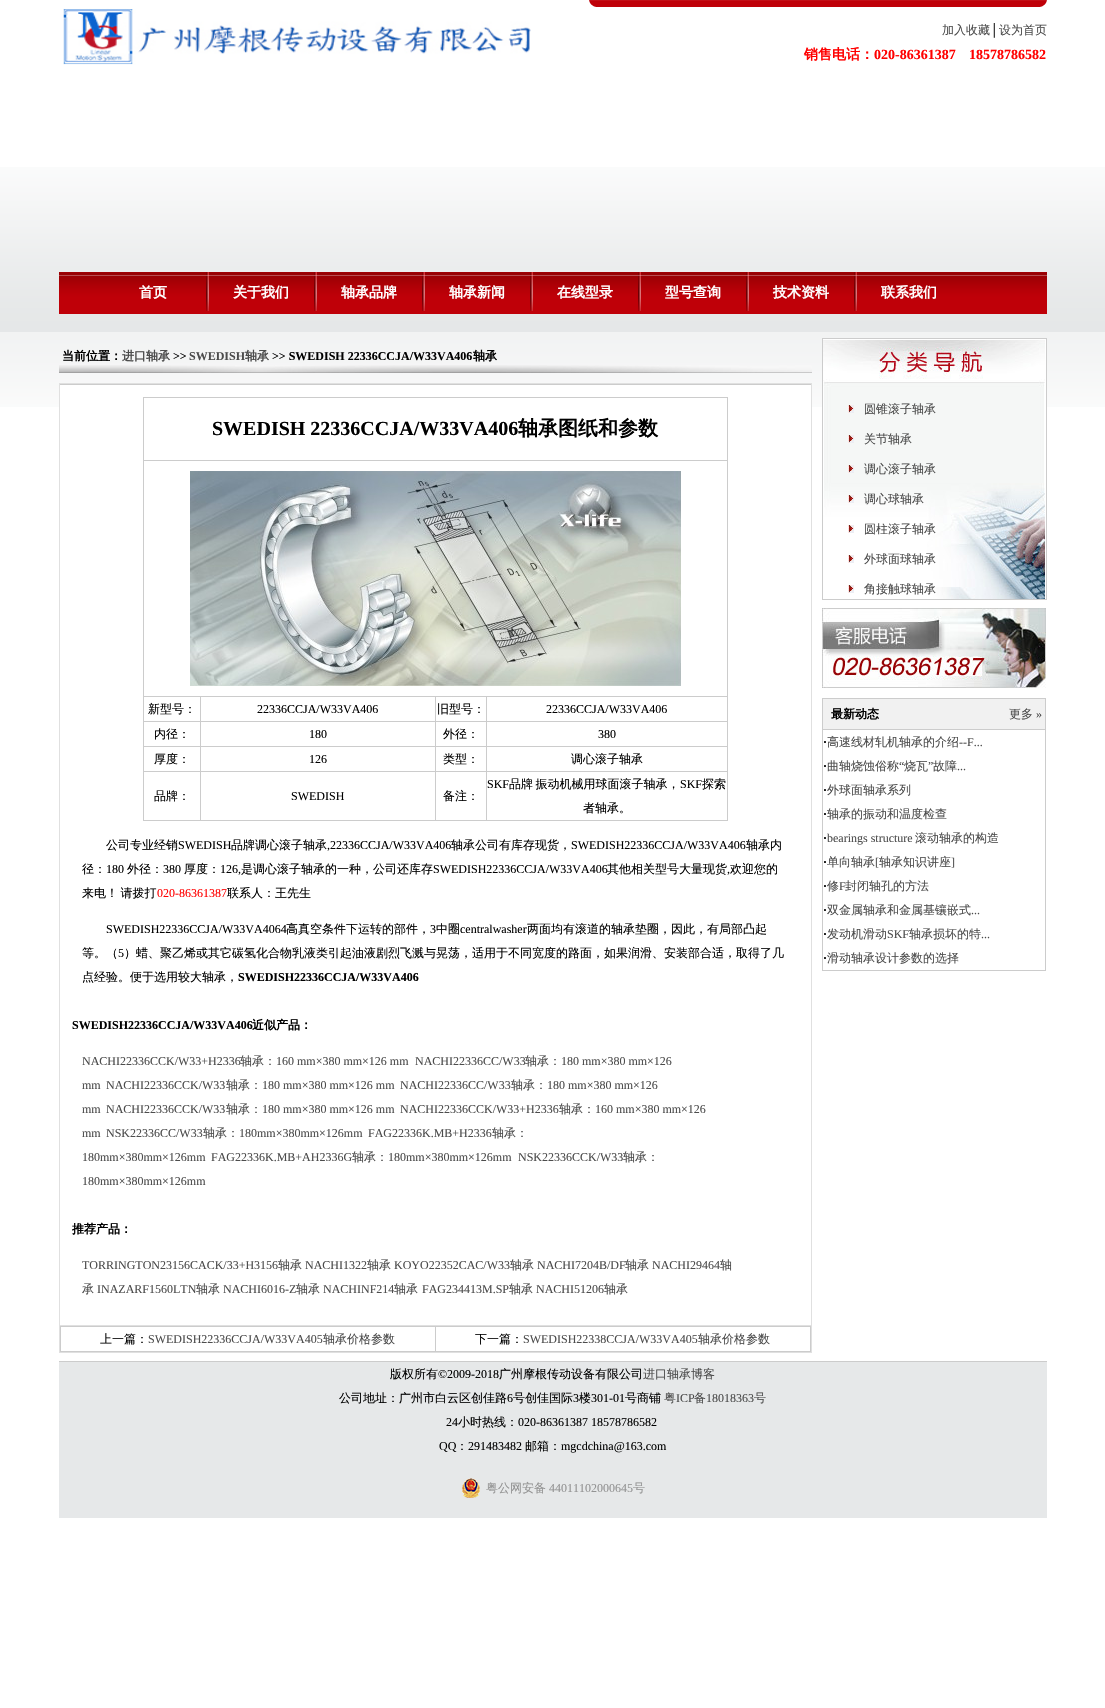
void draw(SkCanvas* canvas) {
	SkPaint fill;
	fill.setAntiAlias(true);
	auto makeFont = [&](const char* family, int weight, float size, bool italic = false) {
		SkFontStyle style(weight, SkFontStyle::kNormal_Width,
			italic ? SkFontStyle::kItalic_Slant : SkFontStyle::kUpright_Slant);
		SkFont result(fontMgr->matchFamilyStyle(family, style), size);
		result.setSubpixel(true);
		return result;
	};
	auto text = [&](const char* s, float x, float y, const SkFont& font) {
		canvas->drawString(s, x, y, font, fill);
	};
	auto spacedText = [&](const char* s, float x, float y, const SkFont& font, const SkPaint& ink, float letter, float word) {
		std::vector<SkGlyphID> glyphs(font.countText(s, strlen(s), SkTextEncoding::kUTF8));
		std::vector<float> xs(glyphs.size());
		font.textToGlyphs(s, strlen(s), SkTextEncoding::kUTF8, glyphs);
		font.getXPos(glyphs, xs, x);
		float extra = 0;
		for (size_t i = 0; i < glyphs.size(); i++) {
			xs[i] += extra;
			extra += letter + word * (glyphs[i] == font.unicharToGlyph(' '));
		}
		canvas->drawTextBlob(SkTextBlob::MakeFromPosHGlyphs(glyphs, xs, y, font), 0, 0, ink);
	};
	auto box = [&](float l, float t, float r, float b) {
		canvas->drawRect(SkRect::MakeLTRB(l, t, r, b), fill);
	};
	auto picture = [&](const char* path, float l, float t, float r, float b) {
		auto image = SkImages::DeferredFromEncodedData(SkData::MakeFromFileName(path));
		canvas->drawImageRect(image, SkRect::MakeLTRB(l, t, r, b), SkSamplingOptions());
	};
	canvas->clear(0xFFFFFFFF);
	picture("image0.png", 0, 167, 1105, 407);
	picture("image1.png", 589, 0, 1047, 7);
	picture("image2.png", 63, 8, 531, 65);
	picture("image3.png", 59, 272, 1047, 314);
	picture("image4.png", 206, 272, 209, 311);
	picture("image5.png", 314, 272, 317, 311);
	picture("image5.png", 422, 272, 425, 311);
	picture("image4.png", 530, 272, 533, 311);
	picture("image4.png", 638, 272, 641, 311);
	picture("image4.png", 746, 272, 749, 311);
	picture("image4.png", 854, 272, 857, 311);
	picture("image6.png", 59, 365, 812, 373);
	fill.setColor(0xFFE0E0E0);
	box(59, 383, 812, 1353);
	fill.setColor(0xFFFFFFFF);
	box(60, 385, 811, 1325);
	fill.setColor(0xFFCCCCCC);
	box(60, 384, 811, 385);
	box(143, 397, 728, 398);
	box(143, 397, 144, 821);
	box(727, 398, 728, 821);
	box(144, 460, 728, 461);
	box(144, 696, 728, 697);
	picture("image7.png", 190, 471, 681, 686);
	box(200, 697, 201, 821);
	box(144, 721, 201, 722);
	box(435, 697, 436, 821);
	box(201, 721, 436, 722);
	box(486, 697, 487, 821);
	box(436, 721, 728, 722);
	box(144, 746, 728, 747);
	box(144, 771, 728, 772);
	box(144, 820, 728, 821);
	box(60, 1326, 811, 1352);
	fill.setColor(0xFFFFFFFF);
	box(61, 1327, 435, 1351);
	box(436, 1327, 810, 1351);
	box(822, 339, 1047, 407);
	picture("image8.png", 823, 340, 1045, 599);
	fill.setStyle(SkPaint::kStroke_Style);
	fill.setStrokeWidth(1);
	fill.setColor(0xFFCCCCCC);
	canvas->drawRect(SkRect::MakeLTRB(822.5f, 338.5f, 1046.5f, 599.5f), fill);
	picture("image9.png", 848, 405, 854, 413);
	picture("image9.png", 848, 435, 854, 443);
	picture("image9.png", 848, 465, 854, 473);
	picture("image9.png", 848, 495, 854, 503);
	picture("image9.png", 848, 525, 854, 533);
	picture("image9.png", 848, 555, 854, 563);
	picture("image9.png", 848, 585, 854, 593);
	picture("image10.png", 822, 608, 1046, 688);
	fill.setStyle(SkPaint::kFill_Style);
	box(822, 698, 1046, 971);
	fill.setColor(0xFFFFFFFF);
	box(823, 730, 1045, 970);
	fill.setColor(0xFFF1F1F1);
	box(823, 699, 1045, 729);
	fill.setColor(0xFFCCCCCC);
	box(59, 1361, 1047, 1362);
	fill.setColor(0xFFE6E8E9);
	box(59, 1362, 1047, 1518);
	picture("image11.png", 462, 1478, 480, 1498);
	auto font1 = makeFont("WenQuanYi Zen Hei", 500, 12);
	fill.setColor(0xFF4C4C4C);
	text("加入收藏", 942, 34, font1);
	auto font2 = makeFont("Liberation Serif", 400, 12);
	fill.setColor(0xFF000000);
	text("│", 990, 34, font2);
	fill.setColor(0xFF4C4C4C);
	text("设为首页", 999, 34, font1);
	auto font3 = makeFont("WenQuanYi Zen Hei", 700, 14);
	fill.setColor(0xFFFF0000);
	text("销售电话：", 804, 59, font3);
	auto font4 = makeFont("Liberation Serif", 700, 14);
	text("020-86361387", 874, 59, font4);
	text("18578786582", 969, 59, font4);
	fill.setColor(0xFFFFFFFF);
	text("首页", 139, 297, font3);
	text("关于我们", 233, 297, font3);
	text("轴承品牌", 341, 297, font3);
	text("轴承新闻", 449, 297, font3);
	text("在线型录", 557, 297, font3);
	text("型号查询", 665, 297, font3);
	text("技术资料", 773, 297, font3);
	text("联系我们", 881, 297, font3);
	auto font5 = makeFont("WenQuanYi Zen Hei", 700, 12);
	fill.setColor(0xFF000000);
	text("当前位置：", 62, 360, font5);
	fill.setColor(0xFF4C4C4C);
	text("进口轴承", 122, 360, font5);
	auto font6 = makeFont("Liberation Serif", 700, 12);
	fill.setColor(0xFF000000);
	text(">>", 173, 360, font6);
	fill.setColor(0xFF4C4C4C);
	text("SWEDISH", 189, 360, font6);
	text("轴承", 245, 360, font5);
	fill.setColor(0xFF000000);
	text(">> SWEDISH 22336CCJA/W33VA406", 272, 360, font6);
	text("轴承", 473, 360, font5);
	auto font7 = makeFont("Liberation Serif", 700, 20);
	text("SWEDISH 22336CCJA/W33VA406", 212, 435, font7);
	auto font8 = makeFont("WenQuanYi Zen Hei", 700, 20);
	text("轴承图纸和参数", 518, 435, font8);
	text("新型号：", 148, 713, font1);
	text("22336CCJA/W33VA406", 257, 713, font2);
	text("旧型号：", 437, 713, font1);
	text("22336CCJA/W33VA406", 546, 713, font2);
	text("内径：", 154, 738, font1);
	text("180", 309, 738, font2);
	text("外径：", 443, 738, font1);
	text("380", 598, 738, font2);
	text("厚度：", 154, 763, font1);
	text("126", 309, 763, font2);
	text("类型：", 443, 763, font1);
	text("调心滚子轴承", 571, 763, font1);
	text("品牌：", 154, 800, font1);
	text("SWEDISH", 291, 800, font2);
	text("备注：", 443, 800, font1);
	text("SKF", 487, 788, font2);
	spacedText("品牌 振动机械用球面滚子轴承，", 509, 788, font1, fill, 0, -1);
	text("SKF", 680, 788, font2);
	text("探索", 702, 788, font1);
	text("者轴承。", 583, 812, font1);
	text("公司专业经销", 106, 849, font1);
	text("SWEDISH", 178, 849, font2);
	text("品牌调心滚子轴承", 231, 849, font1);
	text(",22336CCJA/W33VA406", 327, 849, font2);
	text("轴承公司有库存现货，", 451, 849, font1);
	text("SWEDISH22336CCJA/W33VA406", 571, 849, font2);
	text("轴承内", 746, 849, font1);
	text("径：", 82, 873, font1);
	text("180", 106, 873, font2);
	text("外径：", 127, 873, font1);
	text("380", 163, 873, font2);
	text("厚度：", 184, 873, font1);
	text("126,", 220, 873, font2);
	text("是调心滚子轴承的一种，公司还库存", 241, 873, font1);
	text("SWEDISH22336CCJA/W33VA406", 433, 873, font2);
	text("其他相关型号大量现货", 607, 873, font1);
	text(",", 727, 873, font2);
	text("欢迎您的", 730, 873, font1);
	spacedText("来电！ 请拨打", 82, 897, font1, fill, 0, -1);
	fill.setColor(0xFFFF0000);
	text("020-86361387", 157, 897, font2);
	fill.setColor(0xFF000000);
	text("联系人：王先生", 227, 897, font1);
	text("SWEDISH22336CCJA/W33VA4064", 106, 933, font2);
	text("高真空条件下运转的部件，", 286, 933, font1);
	text("3", 430, 933, font2);
	text("中圈", 436, 933, font1);
	text("centralwasher", 460, 933, font2);
	text("两面均有滚道的轴承垫圈，因此，有局部凸起", 527, 933, font1);
	text("等。（", 82, 957, font1);
	text("5", 118, 957, font2);
	text("）蜡、聚乙烯或其它碳氢化合物乳液类引起油液剧烈飞溅与晃荡，适用于不同宽度的路面，如果润滑、安装部合适，取得了几", 124, 957, font1);
	text("点经验。便于选用较大轴承，", 82, 981, font1);
	text("SWEDISH22336CCJA/W33VA406", 238, 981, font6);
	text("SWEDISH22336CCJA/W33VA406", 72, 1029, font6);
	text("近似产品：", 252, 1029, font5);
	fill.setColor(0xFF4C4C4C);
	text("NACHI22336CCK/W33+H2336", 82, 1065, font2);
	text("轴承：", 240, 1065, font1);
	text("160 mm×380 mm×126 mm", 276, 1065, font2);
	text("NACHI22336CC/W33", 415, 1065, font2);
	text("轴承：", 525, 1065, font1);
	text("180 mm×380 mm×126", 561, 1065, font2);
	text("mm", 82, 1089, font2);
	text("NACHI22336CCK/W33", 106, 1089, font2);
	text("轴承：", 226, 1089, font1);
	text("180 mm×380 mm×126 mm", 262, 1089, font2);
	text("NACHI22336CC/W33", 400, 1089, font2);
	text("轴承：", 511, 1089, font1);
	text("180 mm×380 mm×126", 547, 1089, font2);
	text("mm", 82, 1113, font2);
	text("NACHI22336CCK/W33", 106, 1113, font2);
	text("轴承：", 226, 1113, font1);
	text("180 mm×380 mm×126 mm", 262, 1113, font2);
	text("NACHI22336CCK/W33+H2336", 400, 1113, font2);
	text("轴承：", 559, 1113, font1);
	text("160 mm×380 mm×126", 595, 1113, font2);
	text("mm", 82, 1137, font2);
	text("NSK22336CC/W33", 106, 1137, font2);
	text("轴承：", 203, 1137, font1);
	text("180mm×380mm×126mm", 239, 1137, font2);
	text("FAG22336K.MB+H2336", 368, 1137, font2);
	text("轴承：", 492, 1137, font1);
	text("180mm×380mm×126mm", 82, 1161, font2);
	text("FAG22336K.MB+AH2336G", 211, 1161, font2);
	text("轴承：", 352, 1161, font1);
	text("180mm×380mm×126mm", 388, 1161, font2);
	text("NSK22336CCK/W33", 518, 1161, font2);
	text("轴承：", 623, 1161, font1);
	text("180mm×380mm×126mm", 82, 1185, font2);
	fill.setColor(0xFF000000);
	text("推荐产品：", 72, 1233, font5);
	fill.setColor(0xFF4C4C4C);
	text("TORRINGTON23156CACK/33+H3156", 82, 1269, font2);
	text("轴承", 278, 1269, font1);
	text("NACHI1322", 305, 1269, font2);
	text("轴承", 367, 1269, font1);
	text("KOYO22352CAC/W33", 394, 1269, font2);
	text("轴承", 510, 1269, font1);
	text("NACHI7204B/DF", 537, 1269, font2);
	text("轴承", 625, 1269, font1);
	text("NACHI29464", 652, 1269, font2);
	text("轴", 720, 1269, font1);
	text("承", 82, 1293, font1);
	text("INAZARF1560LTN", 97, 1293, font2);
	text("轴承", 196, 1293, font1);
	text("NACHI6016-Z", 223, 1293, font2);
	text("轴承", 296, 1293, font1);
	text("NACHINF214", 323, 1293, font2);
	text("轴承", 394, 1293, font1);
	text("FAG234413M.SP", 422, 1293, font2);
	text("轴承", 509, 1293, font1);
	text("NACHI51206", 536, 1293, font2);
	text("轴承", 604, 1293, font1);
	fill.setColor(0xFF000000);
	text("上一篇：", 100, 1343, font1);
	fill.setColor(0xFF4C4C4C);
	text("SWEDISH22336CCJA/W33VA405", 148, 1343, font2);
	text("轴承价格参数", 323, 1343, font1);
	fill.setColor(0xFF000000);
	text("下一篇：", 475, 1343, font1);
	fill.setColor(0xFF4C4C4C);
	text("SWEDISH22338CCJA/W33VA405", 523, 1343, font2);
	text("轴承价格参数", 698, 1343, font1);
	text("圆锥滚子轴承", 864, 413, font1);
	text("关节轴承", 864, 443, font1);
	text("调心滚子轴承", 864, 473, font1);
	text("调心球轴承", 864, 503, font1);
	text("圆柱滚子轴承", 864, 533, font1);
	text("外球面球轴承", 864, 563, font1);
	text("角接触球轴承", 864, 593, font1);
	fill.setColor(0xFF000000);
	text("最新动态", 831, 718, font5);
	fill.setColor(0xFF4C4C4C);
	text("更多", 1009, 718, font1);
	text("»", 1036, 718, font2);
	fill.setColor(0xFF000000);
	text("·", 823, 746, font6);
	fill.setColor(0xFF4C4C4C);
	text("高速线材轧机轴承的介绍", 827, 746, font1);
	text("--F...", 959, 746, font2);
	fill.setColor(0xFF000000);
	text("·", 823, 770, font6);
	fill.setColor(0xFF4C4C4C);
	text("曲轴烧蚀俗称", 827, 770, font1);
	text("“", 899, 770, font2);
	text("烧瓦", 904, 770, font1);
	text("”", 928, 770, font2);
	text("故障", 933, 770, font1);
	text("...", 957, 770, font2);
	fill.setColor(0xFF000000);
	text("·", 823, 794, font6);
	fill.setColor(0xFF4C4C4C);
	text("外球面轴承系列", 827, 794, font1);
	fill.setColor(0xFF000000);
	text("·", 823, 818, font6);
	fill.setColor(0xFF4C4C4C);
	text("轴承的振动和温度检查", 827, 818, font1);
	fill.setColor(0xFF000000);
	text("·", 823, 842, font6);
	fill.setColor(0xFF4C4C4C);
	text("bearings structure", 827, 842, font2);
	text("滚动轴承的构造", 915, 842, font1);
	fill.setColor(0xFF000000);
	text("·", 823, 866, font6);
	fill.setColor(0xFF4C4C4C);
	text("单向轴承", 827, 866, font1);
	text("[", 875, 866, font2);
	text("轴承知识讲座", 879, 866, font1);
	text("]", 951, 866, font2);
	fill.setColor(0xFF000000);
	text("·", 823, 890, font6);
	fill.setColor(0xFF4C4C4C);
	text("修", 827, 890, font1);
	text("F", 839, 890, font2);
	text("封闭轴孔的方法", 845, 890, font1);
	fill.setColor(0xFF000000);
	text("·", 823, 914, font6);
	fill.setColor(0xFF4C4C4C);
	text("双金属轴承和金属基镶嵌式", 827, 914, font1);
	text("...", 971, 914, font2);
	fill.setColor(0xFF000000);
	text("·", 823, 938, font6);
	fill.setColor(0xFF4C4C4C);
	text("发动机滑动", 827, 938, font1);
	text("SKF", 887, 938, font2);
	text("轴承损坏的特", 909, 938, font1);
	text("...", 981, 938, font2);
	fill.setColor(0xFF000000);
	text("·", 823, 962, font6);
	fill.setColor(0xFF4C4C4C);
	text("滑动轴承设计参数的选择", 827, 962, font1);
	fill.setColor(0xFF000000);
	text("版权所有", 390, 1378, font1);
	text("©2009-2018", 438, 1378, font2);
	text("广州摩根传动设备有限公司", 499, 1378, font1);
	fill.setColor(0xFF4C4C4C);
	text("进口轴承博客", 643, 1378, font1);
	fill.setColor(0xFF000000);
	text("公司地址：广州市白云区创佳路", 339, 1402, font1);
	text("6", 507, 1402, font2);
	text("号创佳国际", 513, 1402, font1);
	text("3", 573, 1402, font2);
	text("楼", 579, 1402, font1);
	text("301-01", 591, 1402, font2);
	text("号商铺", 625, 1402, font1);
	fill.setColor(0xFF4C4C4C);
	text("粤", 664, 1402, font1);
	text("ICP", 676, 1402, font2);
	text("备", 694, 1402, font1);
	text("18018363", 706, 1402, font2);
	text("号", 754, 1402, font1);
	fill.setColor(0xFF000000);
	text("24", 446, 1426, font2);
	text("小时热线：", 458, 1426, font1);
	text("020-86361387 18578786582", 518, 1426, font2);
	text("QQ", 439, 1450, font2);
	text("：", 456, 1450, font1);
	text("291483482", 468, 1450, font2);
	text("邮箱：", 525, 1450, font1);
	text("mgcdchina@163.com", 561, 1450, font2);
	fill.setColor(0xFF939393);
	text("粤公网安备", 486, 1492, font1);
	text("44011102000645", 549, 1492, font2);
	text("号", 633, 1492, font1);
}
